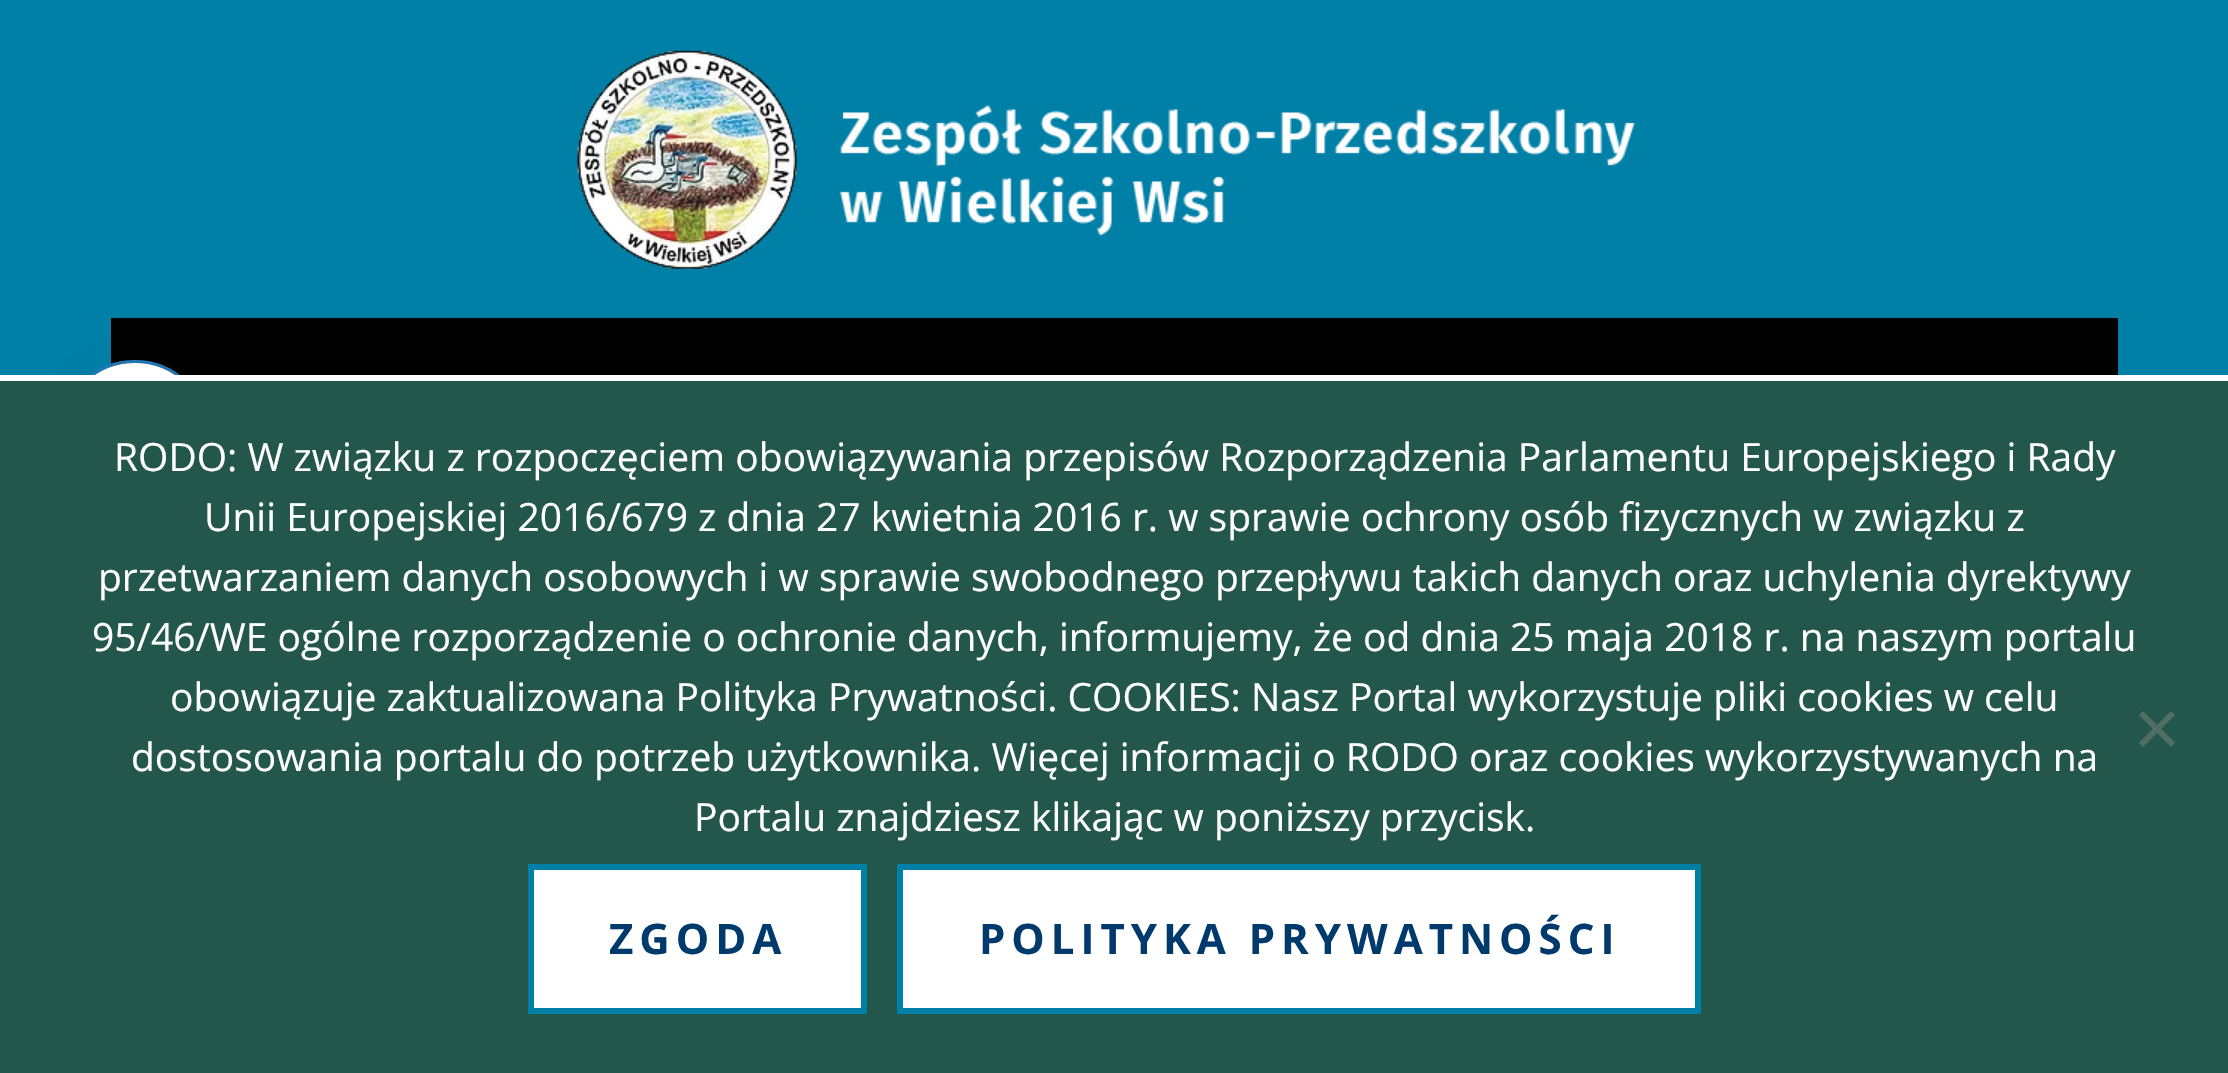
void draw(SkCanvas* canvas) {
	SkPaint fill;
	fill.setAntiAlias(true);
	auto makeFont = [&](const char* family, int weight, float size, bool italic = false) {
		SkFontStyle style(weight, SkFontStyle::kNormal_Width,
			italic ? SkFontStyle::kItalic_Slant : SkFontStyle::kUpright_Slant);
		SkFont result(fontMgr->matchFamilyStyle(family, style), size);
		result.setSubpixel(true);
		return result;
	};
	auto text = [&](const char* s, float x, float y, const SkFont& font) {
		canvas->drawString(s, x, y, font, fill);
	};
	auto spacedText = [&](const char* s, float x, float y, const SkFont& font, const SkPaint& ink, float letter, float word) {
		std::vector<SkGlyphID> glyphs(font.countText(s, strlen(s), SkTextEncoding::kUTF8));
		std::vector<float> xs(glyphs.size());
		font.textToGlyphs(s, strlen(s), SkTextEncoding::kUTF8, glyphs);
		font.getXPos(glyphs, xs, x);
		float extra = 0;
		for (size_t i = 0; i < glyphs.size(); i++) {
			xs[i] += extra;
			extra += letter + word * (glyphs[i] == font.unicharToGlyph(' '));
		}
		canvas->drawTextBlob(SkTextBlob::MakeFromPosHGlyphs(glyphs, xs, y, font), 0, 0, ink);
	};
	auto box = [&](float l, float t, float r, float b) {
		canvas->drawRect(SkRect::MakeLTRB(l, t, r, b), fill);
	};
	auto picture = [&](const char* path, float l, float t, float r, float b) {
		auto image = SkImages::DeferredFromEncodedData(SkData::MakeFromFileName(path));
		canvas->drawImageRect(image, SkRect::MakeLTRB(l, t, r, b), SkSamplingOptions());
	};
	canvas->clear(0xFF007FA7);
	picture("image0.png", 577, 50, 1636, 269);
	fill.setColor(0xFF000000);
	box(111, 318, 2118, 375);
	fill.setStyle(SkPaint::kStroke_Style);
	fill.setStrokeWidth(3);
	fill.setColor(0xFF1E7AB9);
	canvas->drawCircle(135, 435, 73.5f, fill);
	fill.setStyle(SkPaint::kFill_Style);
	fill.setColor(0x33000000);
	fill.setMaskFilter(SkMaskFilter::MakeBlur(kNormal_SkBlurStyle, 24));
	canvas->drawRoundRect(SkRect::MakeLTRB(81, 387, 225, 531), 72, 72, fill);
	fill.setMaskFilter(nullptr);
	fill.setStyle(SkPaint::kStroke_Style);
	fill.setStrokeWidth(12);
	fill.setColor(0xFFFFFFFF);
	canvas->drawCircle(135, 435, 66, fill);
	fill.setStyle(SkPaint::kFill_Style);
	fill.setColor(0xFF23574B);
	box(0, 381, 2228, 1073);
	fill.setColor(0xFFFFFFFF);
	box(0, 375, 2228, 381);
	fill.setColor(0xFF526C66);
	canvas->drawPath(SkPathBuilder().moveTo(2171, 711).lineTo(2175, 715).lineTo(2143, 747).lineTo(2139, 742.5f).close().detach(), fill);
	canvas->drawPath(SkPathBuilder().moveTo(2139, 715).lineTo(2143, 711).lineTo(2175, 742.5f).lineTo(2171, 747).close().detach(), fill);
	fill.setColor(0xFFFFFFFF);
	canvas->drawRect(SkRect::MakeLTRB(531, 867, 864, 1011), fill);
	fill.setStyle(SkPaint::kStroke_Style);
	fill.setStrokeWidth(6);
	fill.setColor(0xFF007FA7);
	canvas->drawRect(SkRect::MakeLTRB(531, 867, 864, 1011), fill);
	fill.setStyle(SkPaint::kFill_Style);
	fill.setColor(0xFFFFFFFF);
	canvas->drawRect(SkRect::MakeLTRB(900, 867, 1698, 1011), fill);
	fill.setStyle(SkPaint::kStroke_Style);
	fill.setColor(0xFF007FA7);
	canvas->drawRect(SkRect::MakeLTRB(900, 867, 1698, 1011), fill);
	auto font1 = makeFont("Open Sans", 400, 39);
	fill.setStyle(SkPaint::kFill_Style);
	fill.setColor(0xFFFFFFFF);
	text("RODO: W związku z rozpoczęciem obowiązywania przepisów Rozporządzenia Parlamentu Europejskiego i Rady", 114, 471, font1);
	text("Unii Europejskiej 2016/679 z dnia 27 kwietnia 2016 r. w sprawie ochrony osób fizycznych w związku z", 204, 531, font1);
	text("przetwarzaniem danych osobowych i w sprawie swobodnego przepływu takich danych oraz uchylenia dyrektywy", 98, 591, font1);
	text("95/46/WE ogólne rozporządzenie o ochronie danych, informujemy, że od dnia 25 maja 2018 r. na naszym portalu", 92, 651, font1);
	text("obowiązuje zaktualizowana Polityka Prywatności. COOKIES: Nasz Portal wykorzystuje pliki cookies w celu", 170, 711, font1);
	text("dostosowania portalu do potrzeb użytkownika. Więcej informacji o RODO oraz cookies wykorzystywanych na", 131, 771, font1);
	text("Portalu znajdziesz klikając w poniższy przycisk.", 694, 831, font1);
	auto font2 = makeFont("Open Sans", 700, 42);
	fill.setColor(0xFF003A6C);
	spacedText("ZGODA", 609, 954, font2, fill, 6, 0);
	spacedText("POLITYKA PRYWATNOŚCI", 979, 954, font2, fill, 6, 0);
}
